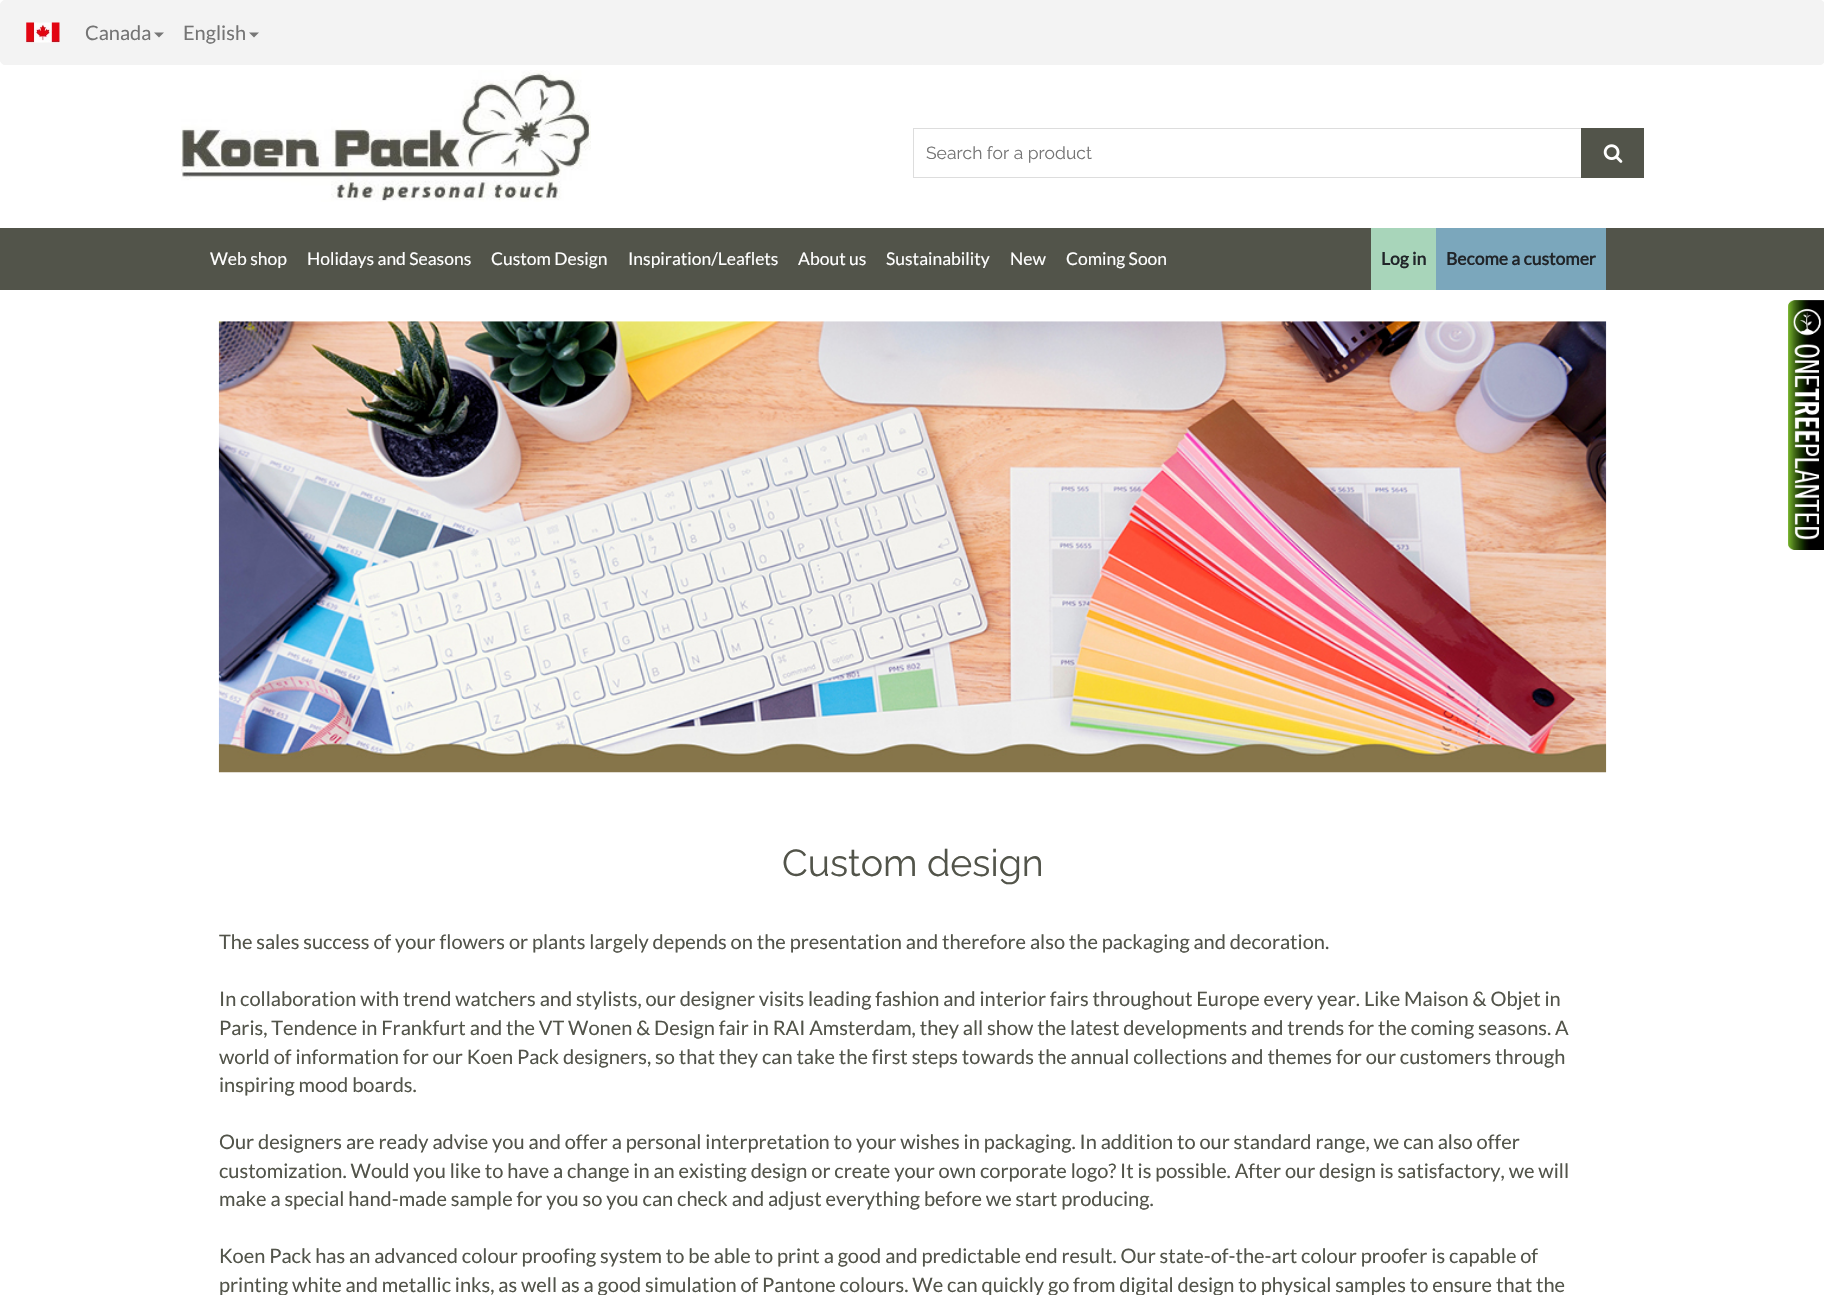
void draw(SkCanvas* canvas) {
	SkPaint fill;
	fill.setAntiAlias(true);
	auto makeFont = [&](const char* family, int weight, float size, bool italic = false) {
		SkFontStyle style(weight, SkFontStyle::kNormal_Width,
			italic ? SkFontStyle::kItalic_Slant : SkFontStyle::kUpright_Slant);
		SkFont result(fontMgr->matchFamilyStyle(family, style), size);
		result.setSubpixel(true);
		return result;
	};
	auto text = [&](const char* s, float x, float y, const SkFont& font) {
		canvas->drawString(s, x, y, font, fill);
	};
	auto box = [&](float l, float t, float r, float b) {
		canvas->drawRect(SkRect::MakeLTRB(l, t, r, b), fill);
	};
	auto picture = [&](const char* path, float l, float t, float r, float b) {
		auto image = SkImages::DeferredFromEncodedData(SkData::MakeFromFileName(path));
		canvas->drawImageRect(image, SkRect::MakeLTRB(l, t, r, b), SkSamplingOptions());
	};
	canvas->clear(0xFFFFFFFF);
	fill.setColor(0xFFF3F3F3);
	canvas->drawRoundRect(SkRect::MakeLTRB(0.5f, 0.5f, 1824.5f, 64.5f), 4.5f, 4.5f, fill);
	fill.setStyle(SkPaint::kStroke_Style);
	fill.setStrokeWidth(1);
	canvas->drawRoundRect(SkRect::MakeLTRB(0.5f, 0.5f, 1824.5f, 64.5f), 4.5f, 4.5f, fill);
	picture("image0.png", 26, 22, 60, 43);
	fill.setStyle(SkPaint::kFill_Style);
	fill.setColor(0xFF777777);
	canvas->drawPath(SkPathBuilder().moveTo(154, 32.5f).lineTo(164, 32.5f).lineTo(159, 37.5f).close().detach(), fill);
	canvas->drawPath(SkPathBuilder().moveTo(249, 32.5f).lineTo(259, 32.5f).lineTo(254, 37.5f).close().detach(), fill);
	picture("image1.png", 181, 70, 591, 202);
	fill.setStyle(SkPaint::kStroke_Style);
	fill.setColor(0xFFDDDDDD);
	canvas->drawRect(SkRect::MakeLTRB(913.5f, 128.5f, 1643.5f, 177.5f), fill);
	fill.setStyle(SkPaint::kFill_Style);
	fill.setColor(0xFF52544A);
	box(1581, 128, 1644, 178);
	picture("image2.png", 1603, 144, 1623, 163);
	box(0, 228, 1824, 290);
	fill.setColor(0xFFA8D5BA);
	box(1371, 228, 1436, 290);
	fill.setColor(0xFF7BA7BC);
	box(1436, 228, 1606, 290);
	picture("image3.png", 218, 321, 1607, 773);
	picture("image4.png", 1788, 300, 1824, 550);
	auto font1 = makeFont("Lato", 400, 20);
	fill.setColor(0xFF757575);
	text("Canada", 85, 40, font1);
	text("English", 183, 40, font1);
	auto font2 = makeFont("Raleway", 100, 17.5f);
	text("Search for a product", 926, 159, font2);
	auto font3 = makeFont("Lato", 400, 17.5f);
	fill.setColor(0xFFFFFFFF);
	text("Web shop", 210, 265, font3);
	text("Holidays and Seasons", 307, 265, font3);
	text("Custom Design", 491, 265, font3);
	text("Inspiration/Leaflets", 628, 265, font3);
	text("About us", 798, 265, font3);
	text("Sustainability", 886, 265, font3);
	text("New", 1010, 265, font3);
	text("Coming Soon", 1066, 265, font3);
	auto font4 = makeFont("Lato", 700, 17.5f);
	fill.setColor(0xFF212529);
	text("Log in", 1381, 265, font4);
	text("Become a customer", 1446, 265, font4);
	auto font5 = makeFont("Raleway", 100, 37.5f);
	fill.setColor(0xFF52544A);
	text("Custom design", 782, 876, font5);
	text("The sales success of your flowers or plants largely depends on the presentation and therefore also the packaging and decoration.", 219, 949, font1);
	text("In collaboration with trend watchers and stylists, our designer visits leading fashion and interior fairs throughout Europe every year. Like Maison & Objet in", 219, 1006, font1);
	text("Paris, Tendence in Frankfurt and the VT Wonen & Design fair in RAI Amsterdam, they all show the latest developments and trends for the coming seasons. A", 219, 1035, font1);
	text("world of information for our Koen Pack designers, so that they can take the first steps towards the annual collections and themes for our customers through", 219, 1064, font1);
	text("inspiring mood boards.", 219, 1092, font1);
	text("Our designers are ready advise you and offer a personal interpretation to your wishes in packaging. In addition to our standard range, we can also offer", 219, 1149, font1);
	text("customization. Would you like to have a change in an existing design or create your own corporate logo? It is possible. After our design is satisfactory, we will", 219, 1178, font1);
	text("make a special hand-made sample for you so you can check and adjust everything before we start producing.", 219, 1206, font1);
	text("Koen Pack has an advanced colour proofing system to be able to print a good and predictable end result. Our state-of-the-art colour proofer is capable of", 219, 1263, font1);
	text("printing white and metallic inks, as well as a good simulation of Pantone colours. We can quickly go from digital design to physical samples to ensure that the", 219, 1292, font1);
}
